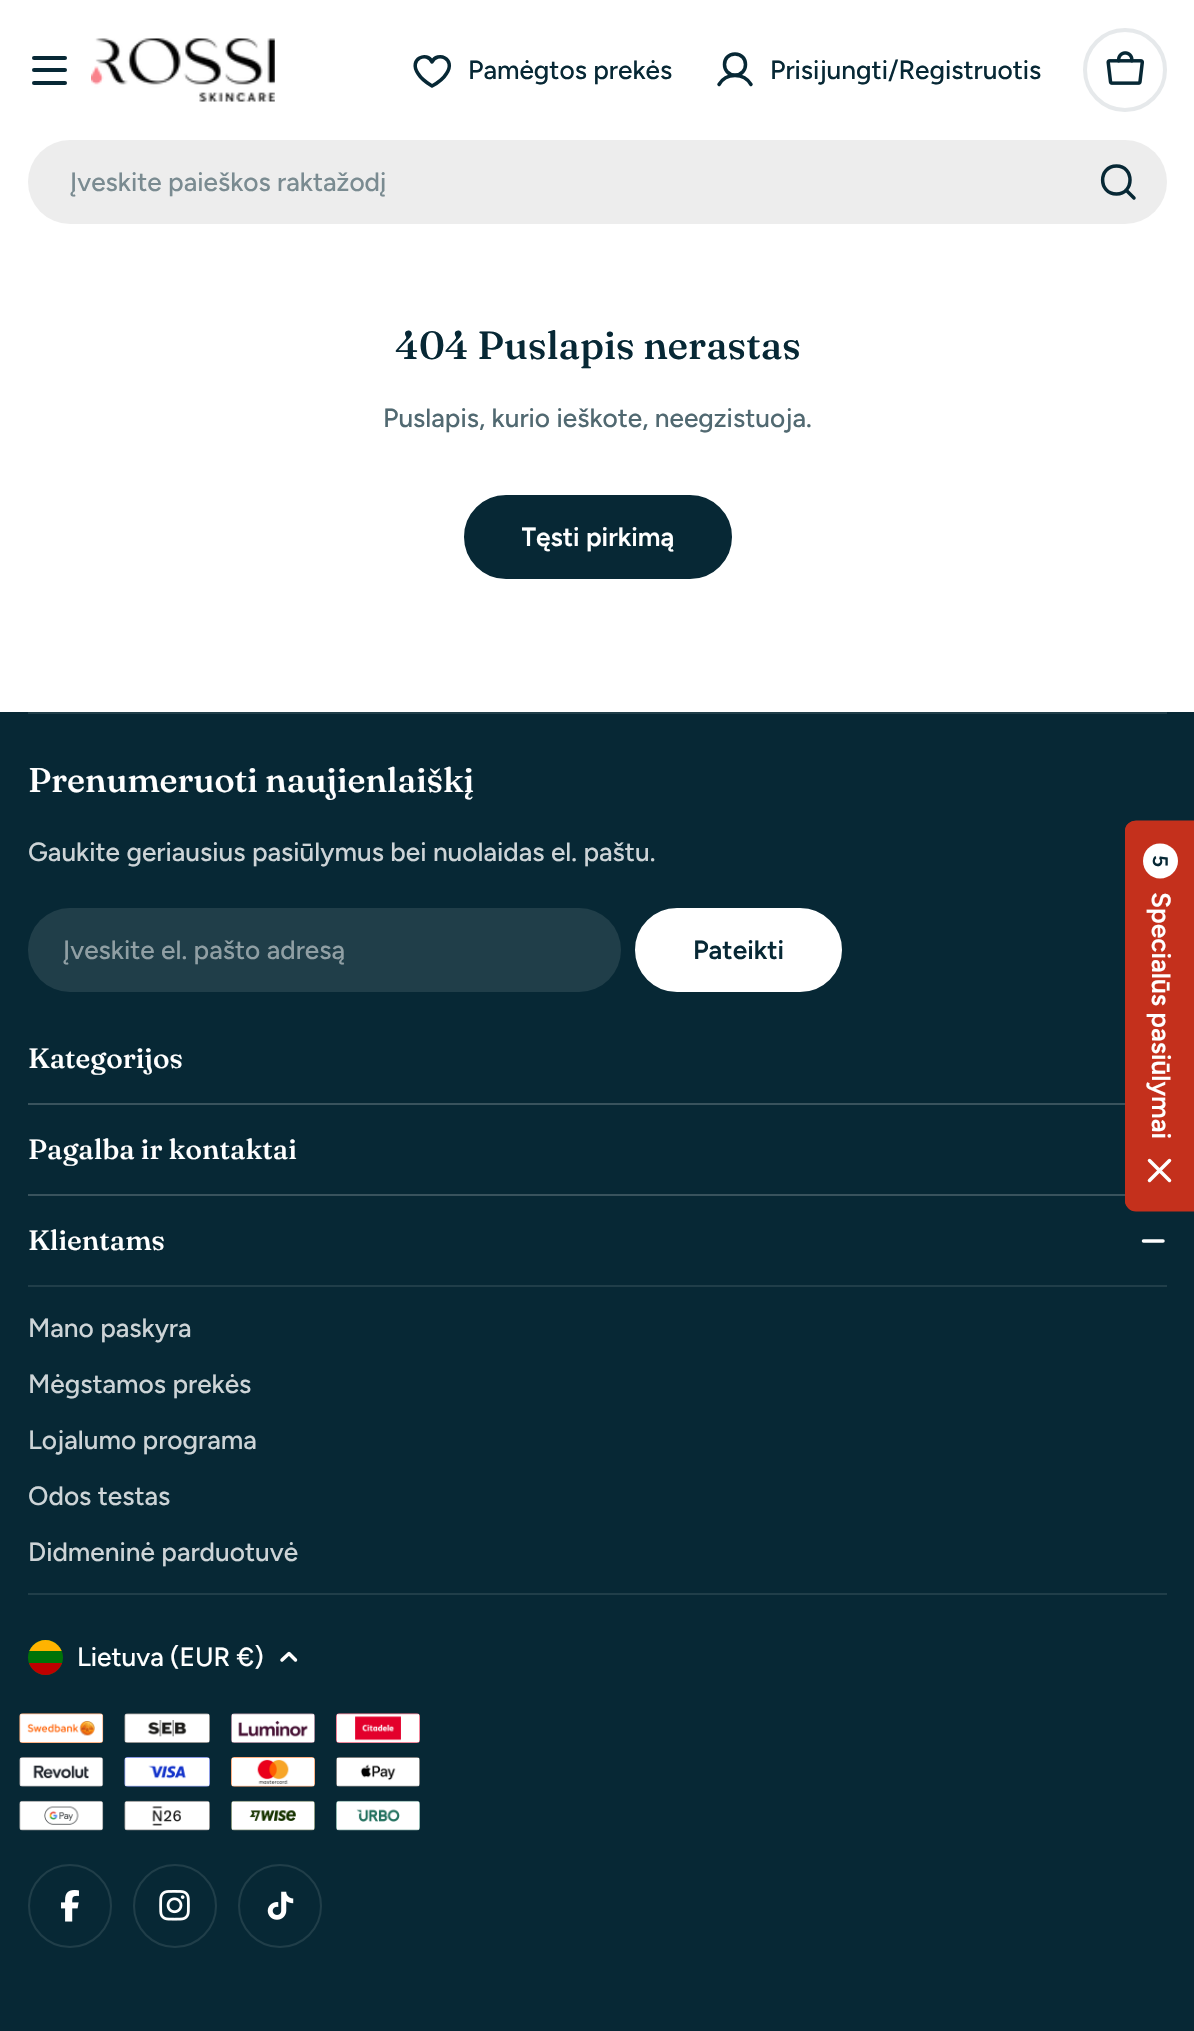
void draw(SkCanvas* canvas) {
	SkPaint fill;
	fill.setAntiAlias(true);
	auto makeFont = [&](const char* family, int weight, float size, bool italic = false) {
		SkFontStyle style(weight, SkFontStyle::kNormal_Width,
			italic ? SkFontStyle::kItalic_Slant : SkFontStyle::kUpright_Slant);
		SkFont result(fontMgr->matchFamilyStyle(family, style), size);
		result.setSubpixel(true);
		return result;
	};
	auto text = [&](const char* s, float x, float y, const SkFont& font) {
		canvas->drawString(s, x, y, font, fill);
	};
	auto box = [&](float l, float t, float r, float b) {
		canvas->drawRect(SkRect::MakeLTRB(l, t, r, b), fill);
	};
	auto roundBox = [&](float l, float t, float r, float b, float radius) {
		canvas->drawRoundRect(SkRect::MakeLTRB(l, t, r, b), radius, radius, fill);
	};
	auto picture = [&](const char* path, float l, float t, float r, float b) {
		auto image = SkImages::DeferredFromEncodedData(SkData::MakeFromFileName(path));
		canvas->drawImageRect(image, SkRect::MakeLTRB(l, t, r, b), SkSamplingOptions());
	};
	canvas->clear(0xFFFFFFFF);
	fill.setColor(0xFF072835);
	roundBox(32, 68, 67, 72, 2);
	roundBox(32, 56, 67, 60, 2);
	roundBox(32, 81, 67, 85, 2);
	picture("image0.png", 91, 38, 275, 102);
	fill.setStyle(SkPaint::kStroke_Style);
	fill.setStrokeWidth(3.5f);
	fill.setStrokeCap(SkPaint::kRound_Cap);
	fill.setStrokeJoin(SkPaint::kRound_Join);
	canvas->drawPath(SkPathBuilder().moveTo(432, 86).cubicTo(427, 83, 421, 78.5f, 418, 73.5f).cubicTo(408, 58.5f, 427.5f, 51, 432, 62).cubicTo(437, 51, 456.5f, 58.5f, 446.5f, 73.5f).cubicTo(443.5f, 78.5f, 437.5f, 83, 432, 86).close().detach(), fill);
	canvas->drawPath(SkPathBuilder().moveTo(735, 75).cubicTo(749, 75, 749, 54, 735, 54).cubicTo(721, 54, 721, 75, 735, 75).close().moveTo(719, 84.5f).cubicTo(726, 72.5f, 744, 72.5f, 751, 84.5f).detach(), fill);
	fill.setStrokeWidth(4);
	fill.setStrokeCap(SkPaint::kButt_Cap);
	fill.setStrokeJoin(SkPaint::kMiter_Join);
	fill.setColor(0xFFE6E9EB);
	canvas->drawCircle(1125, 70, 40, fill);
	picture("image1.png", 1106, 51, 1144, 85);
	fill.setStyle(SkPaint::kFill_Style);
	fill.setColor(0xFFEDEDED);
	roundBox(28, 140, 1167, 224, 42);
	fill.setStyle(SkPaint::kStroke_Style);
	fill.setStrokeWidth(3.5f);
	fill.setStrokeCap(SkPaint::kRound_Cap);
	fill.setStrokeJoin(SkPaint::kRound_Join);
	fill.setColor(0xFF072835);
	canvas->drawPath(SkPathBuilder().moveTo(1116.5f, 194).cubicTo(1134.5f, 194, 1134.5f, 166, 1116.5f, 166).cubicTo(1098, 166, 1098, 194, 1116.5f, 194).close().moveTo(1126, 190).lineTo(1134, 198).detach(), fill);
	fill.setStyle(SkPaint::kFill_Style);
	canvas->drawRoundRect(SkRect::MakeLTRB(465, 496, 731, 578), 41, 41, fill);
	fill.setStyle(SkPaint::kStroke_Style);
	fill.setStrokeWidth(2);
	fill.setStrokeCap(SkPaint::kButt_Cap);
	fill.setStrokeJoin(SkPaint::kMiter_Join);
	canvas->drawRoundRect(SkRect::MakeLTRB(465, 496, 731, 578), 41, 41, fill);
	fill.setStyle(SkPaint::kFill_Style);
	box(0, 712, 1194, 2031);
	fill.setColor(0xFF203E49);
	box(28, 712, 1167, 714);
	roundBox(28, 908, 621, 992, 42);
	fill.setColor(0xFFFFFFFF);
	canvas->drawRoundRect(SkRect::MakeLTRB(636, 909, 841, 991), 41, 41, fill);
	fill.setStyle(SkPaint::kStroke_Style);
	canvas->drawRoundRect(SkRect::MakeLTRB(636, 909, 841, 991), 41, 41, fill);
	fill.setStyle(SkPaint::kFill_Style);
	fill.setColor(0xFF39535D);
	box(28, 1103, 1125, 1105);
	box(28, 1194, 1125, 1196);
	fill.setColor(0xFF203E49);
	box(28, 1285, 1167, 1287);
	fill.setStyle(SkPaint::kStroke_Style);
	fill.setStrokeWidth(3.5f);
	fill.setStrokeCap(SkPaint::kRound_Cap);
	fill.setStrokeJoin(SkPaint::kRound_Join);
	fill.setColor(0xFFFFFFFF);
	canvas->drawPath(SkPathBuilder().moveTo(1143.5f, 1241).lineTo(1163, 1241).moveTo(1143.5f, 1241).lineTo(1163, 1241).detach(), fill);
	fill.setStyle(SkPaint::kFill_Style);
	fill.setColor(0xFF203E49);
	box(28, 1593, 1167, 1595);
	fill.setColor(0xFF007308);
	canvas->drawCircle(45.5f, 1657.5f, 17.5f, fill);
	canvas->save();
	canvas->clipPath(SkPathBuilder().moveTo(45.5f, 1640).cubicTo(55, 1640, 63, 1648, 63, 1657.5f).cubicTo(63, 1667, 55, 1675, 45.5f, 1675).cubicTo(36, 1675, 28, 1667, 28, 1657.5f).cubicTo(28, 1648, 36, 1640, 45.5f, 1640).close().detach(), true);
	fill.setColor(0xFFBF0000);
	box(29, 1663, 62, 1675);
	fill.setColor(0xFFFFB300);
	box(29, 1640, 62, 1651);
	canvas->restore();
	fill.setStyle(SkPaint::kStroke_Style);
	fill.setColor(0xFFFFFFFF);
	canvas->drawPath(SkPathBuilder().moveTo(282, 1660).lineTo(289, 1653.5f).lineTo(295.5f, 1660).detach(), fill);
	picture("image2.png", 19, 1713, 104, 1743);
	picture("image3.png", 124, 1713, 210, 1743);
	picture("image4.png", 231, 1713, 315, 1743);
	picture("image5.png", 336, 1713, 420, 1743);
	picture("image6.png", 19, 1757, 104, 1787);
	picture("image7.png", 124, 1757, 210, 1787);
	picture("image8.png", 231, 1757, 315, 1787);
	picture("image9.png", 336, 1757, 420, 1787);
	picture("image10.png", 19, 1800, 104, 1831);
	picture("image11.png", 124, 1800, 210, 1831);
	picture("image12.png", 231, 1800, 315, 1831);
	picture("image13.png", 336, 1800, 420, 1831);
	fill.setStrokeWidth(2);
	fill.setStrokeCap(SkPaint::kButt_Cap);
	fill.setStrokeJoin(SkPaint::kMiter_Join);
	fill.setColor(0xFF203E49);
	canvas->drawCircle(70, 1906, 41, fill);
	picture("image14.png", 61, 1890, 79, 1922);
	canvas->drawCircle(175, 1906, 41, fill);
	picture("image15.png", 159, 1890, 190, 1921);
	canvas->drawCircle(280, 1906, 41, fill);
	picture("image16.png", 267, 1891, 294, 1920);
	fill.setStyle(SkPaint::kFill_Style);
	fill.setColor(0xFFC4301C);
	canvas->drawPath(SkPathBuilder().moveTo(1125, 1201).lineTo(1125, 831).cubicTo(1125, 825, 1130, 821, 1136, 821).lineTo(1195, 821).lineTo(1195, 1211).lineTo(1136, 1211).cubicTo(1130, 1211, 1125, 1206, 1125, 1201).close().detach(), fill);
	fill.setStyle(SkPaint::kStroke_Style);
	fill.setStrokeWidth(1.8f);
	canvas->drawPath(SkPathBuilder().moveTo(1126, 1200.5f).lineTo(1126, 831).cubicTo(1126, 825.5f, 1130.5f, 821.5f, 1136, 821.5f).lineTo(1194.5f, 821.5f).lineTo(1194.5f, 1210.5f).lineTo(1136, 1210.5f).cubicTo(1130.5f, 1210.5f, 1126, 1206, 1126, 1200.5f).close().detach(), fill);
	fill.setStyle(SkPaint::kFill_Style);
	fill.setColor(0xFFFFFFFF);
	canvas->drawPath(SkPathBuilder().moveTo(1178, 861).cubicTo(1178, 870.5f, 1170, 878.5f, 1160, 878.5f).cubicTo(1150.5f, 878.5f, 1143, 870.5f, 1143, 861).cubicTo(1143, 851, 1150.5f, 843.5f, 1160, 843.5f).cubicTo(1170, 843.5f, 1178, 851, 1178, 861).close().detach(), fill);
	fill.setStyle(SkPaint::kStroke_Style);
	fill.setStrokeWidth(3.5f);
	fill.setStrokeCap(SkPaint::kRound_Cap);
	fill.setStrokeJoin(SkPaint::kRound_Join);
	canvas->drawPath(SkPathBuilder().moveTo(1169.5f, 1180.5f).lineTo(1149.5f, 1160.5f).moveTo(1149.5f, 1180.5f).lineTo(1169.5f, 1160.5f).detach(), fill);
	auto font1 = makeFont("Figtree", 500, 26.25f);
	fill.setStyle(SkPaint::kFill_Style);
	fill.setColor(0xFF072835);
	text("Pamėgtos prekės", 468, 79, font1);
	text("Prisijungti/Registruotis", 770, 79, font1);
	fill.setColor(0xFF7A8B91);
	text("Įveskite paieškos raktažodį", 70, 191, font1);
	auto font2 = makeFont("Fraunces", 500, 39.25f);
	fill.setColor(0xFF072835);
	text("404 Puslapis nerastas", 395, 359, font2);
	fill.setColor(0xFF516971);
	text("Puslapis, kurio ieškote, neegzistuoja.", 383, 427, font1);
	canvas->save();
	canvas->clipRect(SkRect::MakeLTRB(522, 511, 674, 564));
	auto font3 = makeFont("Figtree", 600, 26.25f);
	fill.setColor(0xFFFFFFFF);
	text("Tęsti pirkimą", 521, 546, font3);
	canvas->restore();
	auto font4 = makeFont("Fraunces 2", 500, 34.25f);
	text("Prenumeruoti naujienlaiškį", 28, 792, font4);
	fill.setColor(0xFFCDD4D7);
	text("Gaukite geriausius pasiūlymus bei nuolaidas el. paštu.", 28, 861, font1);
	fill.setColor(0xFF909FA4);
	text("Įveskite el. pašto adresą", 63, 959, font1);
	fill.setColor(0xFF072835);
	text("Pateikti", 693, 959, font3);
	auto font5 = makeFont("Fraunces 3", 500, 28);
	fill.setColor(0xFFFFFFFF);
	text("Kategorijos", 28, 1068, font5);
	text("Pagalba ir kontaktai", 28, 1159, font5);
	text("Klientams", 28, 1250, font5);
	fill.setColor(0xFFCDD4D7);
	text("Mano paskyra", 28, 1337, font1);
	text("Mėgstamos prekės", 28, 1393, font1);
	text("Lojalumo programa", 28, 1449, font1);
	text("Odos testas", 28, 1505, font1);
	text("Didmeninė parduotuvė", 28, 1561, font1);
	fill.setColor(0xFFFFFFFF);
	text("Lietuva (EUR €)", 77, 1666, font1);
	auto font6 = makeFont("Figtree", 600, 21);
	fill.setColor(0xFF072835);
	canvas->save();
	canvas->rotate(90, 1153, 855);
	text("5", 1153, 855, font6);
	canvas->restore();
	fill.setColor(0xFFFFFFFF);
	canvas->save();
	canvas->rotate(90, 1152, 892);
	text("Specialūs pasiūlymai", 1152, 892, font3);
	canvas->restore();
}
